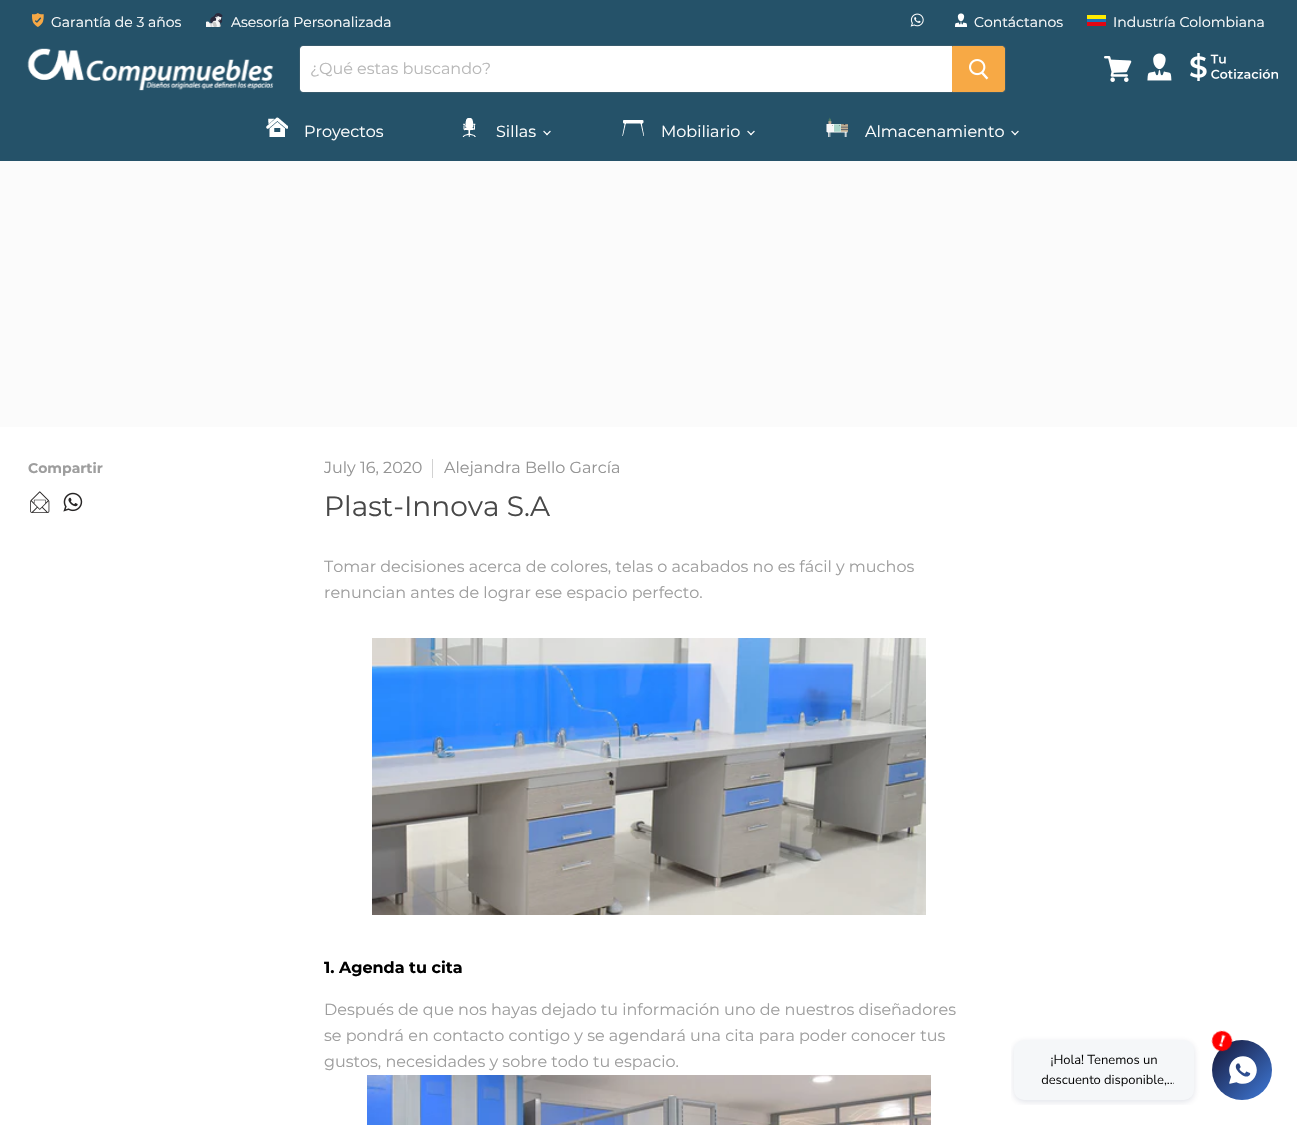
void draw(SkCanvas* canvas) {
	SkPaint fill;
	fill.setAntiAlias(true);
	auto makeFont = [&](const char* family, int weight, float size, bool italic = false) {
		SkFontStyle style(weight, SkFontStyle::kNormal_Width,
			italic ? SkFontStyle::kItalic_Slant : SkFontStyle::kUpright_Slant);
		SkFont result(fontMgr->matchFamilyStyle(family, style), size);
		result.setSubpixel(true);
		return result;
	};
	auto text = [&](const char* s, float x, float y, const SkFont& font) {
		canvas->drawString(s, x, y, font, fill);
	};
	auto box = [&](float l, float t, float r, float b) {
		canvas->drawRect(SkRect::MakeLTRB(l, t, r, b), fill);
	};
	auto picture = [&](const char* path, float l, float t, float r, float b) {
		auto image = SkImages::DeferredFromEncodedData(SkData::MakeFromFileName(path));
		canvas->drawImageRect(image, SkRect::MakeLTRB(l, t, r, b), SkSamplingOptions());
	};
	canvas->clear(0xFFFFFFFF);
	fill.setColor(0xFF255269);
	box(0, 0, 1297, 161);
	picture("image0.png", 32, 13, 44, 27);
	picture("image1.png", 206, 13, 223, 27);
	picture("image2.png", 910, 13, 924, 27);
	picture("image3.png", 955, 13, 967, 27);
	fill.setColor(0xFFFFEC00);
	box(1087, 15, 1106, 19);
	fill.setColor(0xFF1D70B7);
	box(1087, 19, 1106, 22);
	fill.setColor(0xFFE20613);
	box(1087, 22, 1106, 26);
	picture("image4.png", 27, 48, 274, 91);
	fill.setStyle(SkPaint::kStroke_Style);
	fill.setStrokeWidth(1);
	fill.setColor(0x337F7F7F);
	canvas->drawRoundRect(SkRect::MakeLTRB(299.5f, 45.5f, 1005.5f, 92.5f), 3.5f, 3.5f, fill);
	fill.setStyle(SkPaint::kFill_Style);
	fill.setColor(0xFFFFFFFF);
	canvas->drawPath(SkPathBuilder().moveTo(303, 46).lineTo(952, 46).lineTo(952, 92).lineTo(303, 92).cubicTo(301.5f, 92, 300, 90.5f, 300, 89).lineTo(300, 49).cubicTo(300, 47.5f, 301.5f, 46, 303, 46).close().detach(), fill);
	fill.setColor(0xFFF7A945);
	canvas->drawPath(SkPathBuilder().moveTo(952.5f, 46.5f).lineTo(1002, 46.5f).cubicTo(1003.5f, 46.5f, 1004.5f, 47.5f, 1004.5f, 49).lineTo(1004.5f, 89).cubicTo(1004.5f, 90.5f, 1003.5f, 91.5f, 1002, 91.5f).lineTo(952.5f, 91.5f).close().detach(), fill);
	fill.setStyle(SkPaint::kStroke_Style);
	canvas->drawPath(SkPathBuilder().moveTo(952.5f, 46.5f).lineTo(1002, 46.5f).cubicTo(1003.5f, 46.5f, 1004.5f, 47.5f, 1004.5f, 49).lineTo(1004.5f, 89).cubicTo(1004.5f, 90.5f, 1003.5f, 91.5f, 1002, 91.5f).lineTo(952.5f, 91.5f).close().detach(), fill);
	picture("image5.png", 969, 59, 989, 80);
	picture("image6.png", 1104, 56, 1132, 82);
	picture("image7.png", 1147, 53, 1172, 81);
	picture("image8.png", 1190, 53, 1278, 81);
	picture("image9.png", 266, 117, 288, 137);
	picture("image10.png", 462, 118, 476, 137);
	picture("image11.png", 543, 130, 551, 136);
	picture("image12.png", 622, 120, 644, 136);
	picture("image11.png", 747, 130, 755, 136);
	picture("image13.png", 826, 117, 848, 137);
	picture("image11.png", 1011, 130, 1019, 136);
	fill.setStyle(SkPaint::kFill_Style);
	fill.setColor(0xFFFBFBFB);
	box(0, 161, 1297, 427);
	picture("image14.png", 30, 491, 50, 513);
	picture("image15.png", 63, 492, 83, 512);
	fill.setColor(0xFFD2D2D2);
	box(432, 459, 433, 478);
	picture("image16.png", 372, 638, 926, 915);
	picture("image17.png", 367, 1075, 931, 1125);
	picture("image18.png", 1011, 1030, 1272, 1105);
	auto font1 = makeFont("Montserrat", 400, 14);
	fill.setColor(0xFFFFFFFF);
	text("Garantía de 3 años", 51, 27, font1);
	text("Asesoría Personalizada", 231, 27, font1);
	text("Contáctanos", 974, 27, font1);
	text("Industría Colombiana", 1113, 27, font1);
	auto font2 = makeFont("Montserrat", 400, 16);
	fill.setColor(0xFFB8B8B8);
	text("¿Qué estas buscando?", 310, 74, font2);
	fill.setColor(0xFFFFFFFF);
	text("Proyectos", 304, 137, font2);
	text("Sillas", 496, 137, font2);
	text("Mobiliario", 661, 137, font2);
	text("Almacenamiento", 865, 137, font2);
	auto font3 = makeFont("Montserrat", 700, 14);
	fill.setColor(0xFF9E9E9E);
	text("Compartir", 28, 473, font3);
	fill.setColor(0xFF949494);
	text("July 16, 2020", 324, 473, font2);
	text("Alejandra Bello García", 444, 473, font2);
	auto font4 = makeFont("Montserrat", 400, 28);
	fill.setColor(0xFF484848);
	text("Plast-Innova S.A", 324, 516, font4);
	fill.setColor(0xFF9E9E9E);
	text("Tomar decisiones acerca de colores, telas o acabados no es fácil y muchos", 324, 572, font2);
	text("renuncian antes de lograr ese espacio perfecto.", 324, 598, font2);
	auto font5 = makeFont("Montserrat", 700, 16);
	fill.setColor(0xFF000000);
	text("1. Agenda tu cita", 324, 973, font5);
	fill.setColor(0xFF9E9E9E);
	text("Después de que nos hayas dejado tu información uno de nuestros diseñadores", 324, 1015, font2);
	text("se pondrá en contacto contigo y se agendará una cita para poder conocer tus", 324, 1041, font2);
	text("gustos, necesidades y sobre todo tu espacio.", 324, 1067, font2);
}
